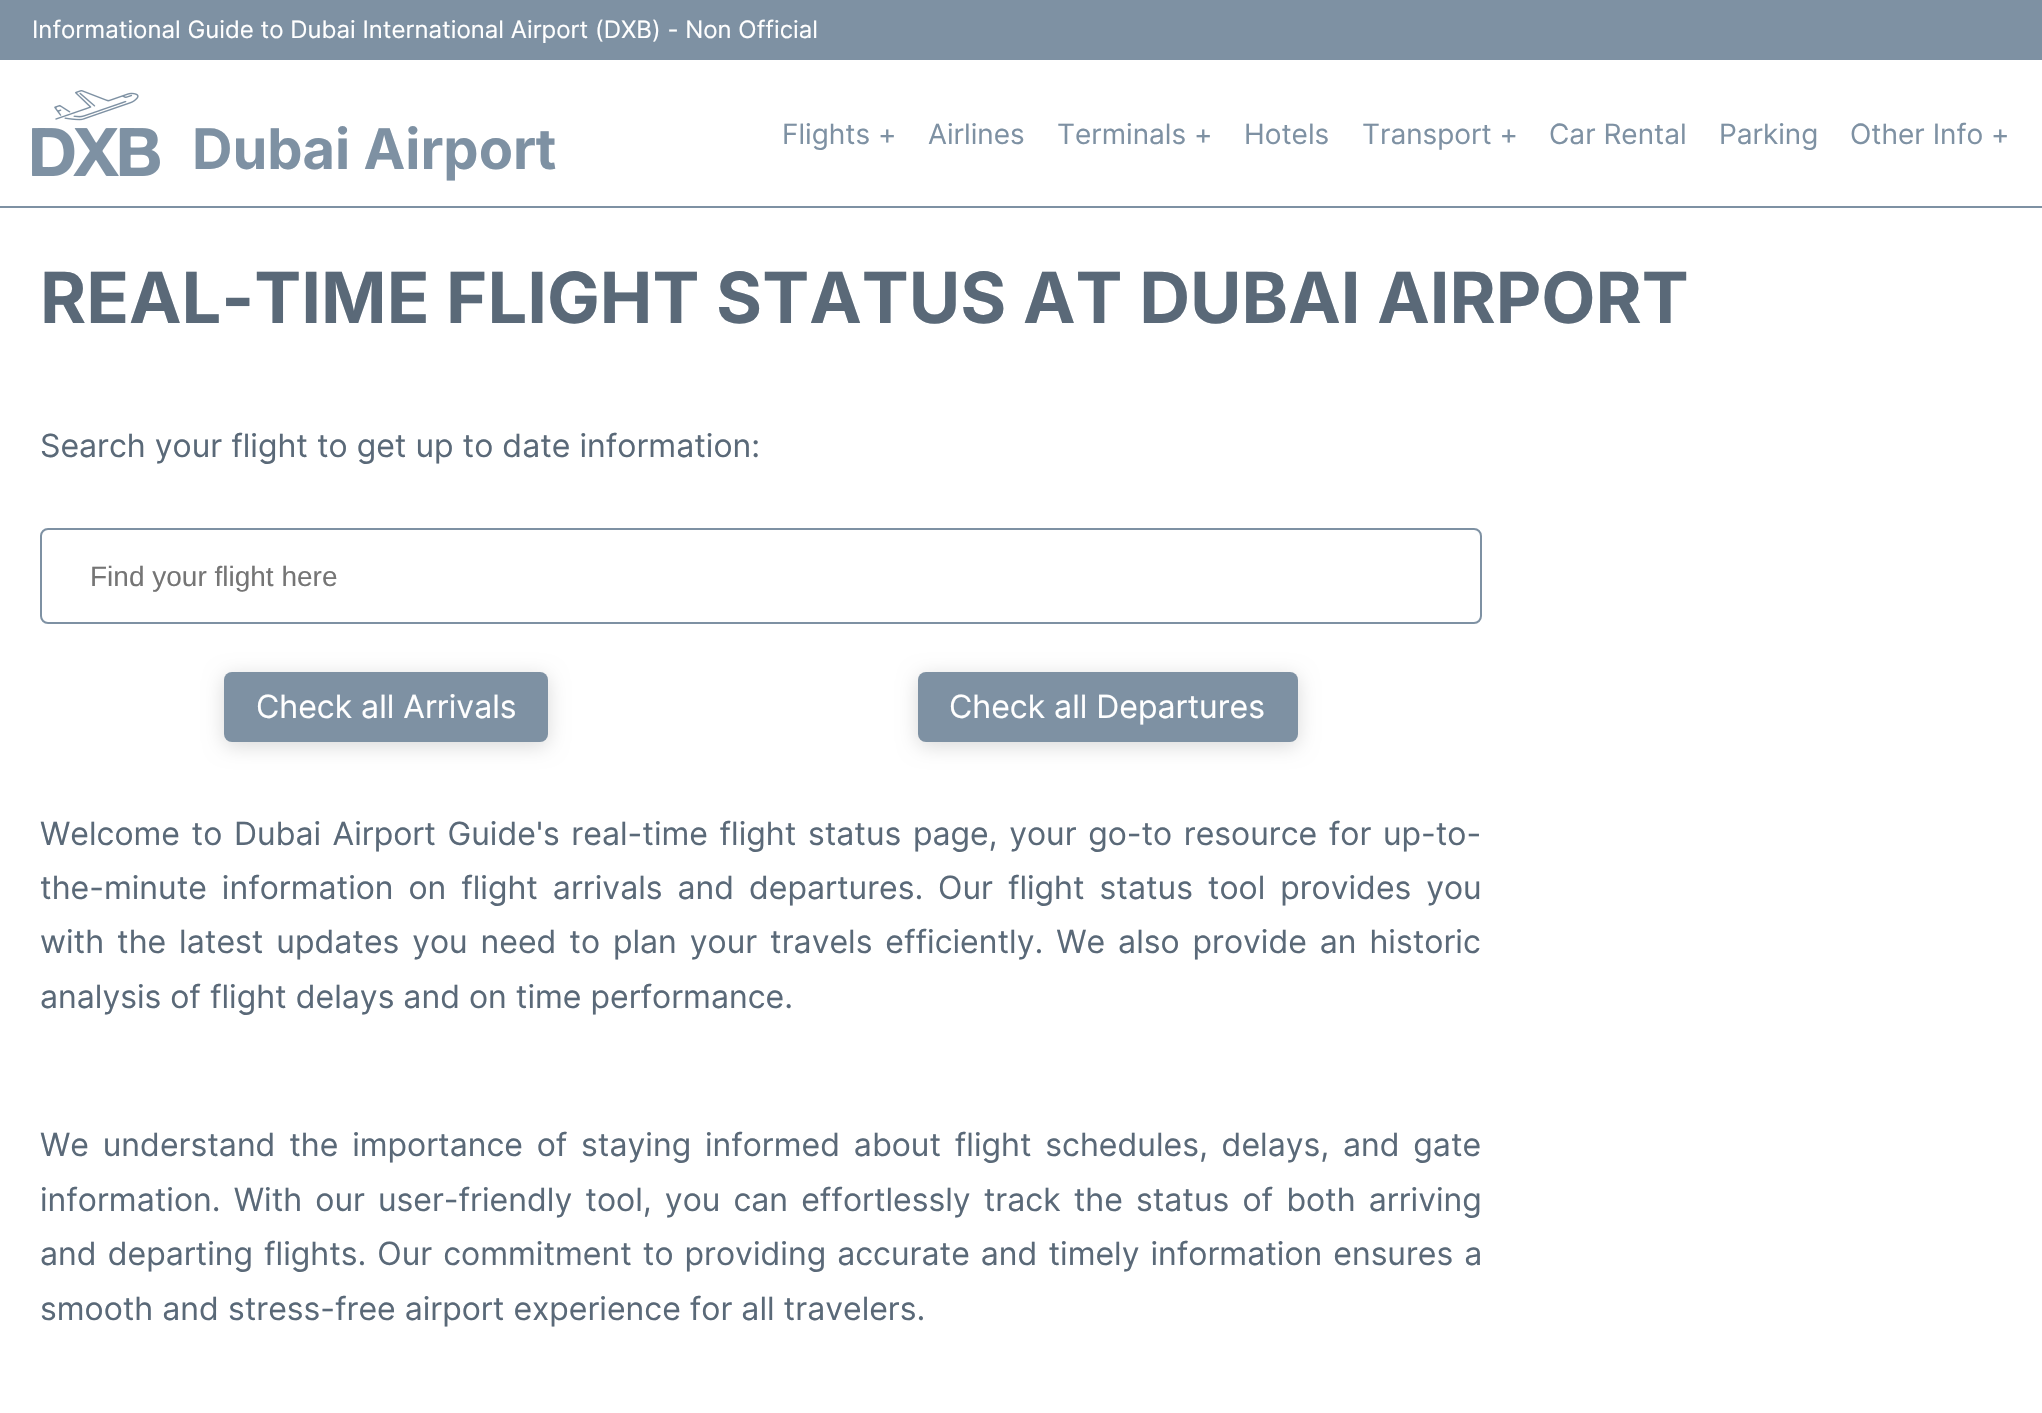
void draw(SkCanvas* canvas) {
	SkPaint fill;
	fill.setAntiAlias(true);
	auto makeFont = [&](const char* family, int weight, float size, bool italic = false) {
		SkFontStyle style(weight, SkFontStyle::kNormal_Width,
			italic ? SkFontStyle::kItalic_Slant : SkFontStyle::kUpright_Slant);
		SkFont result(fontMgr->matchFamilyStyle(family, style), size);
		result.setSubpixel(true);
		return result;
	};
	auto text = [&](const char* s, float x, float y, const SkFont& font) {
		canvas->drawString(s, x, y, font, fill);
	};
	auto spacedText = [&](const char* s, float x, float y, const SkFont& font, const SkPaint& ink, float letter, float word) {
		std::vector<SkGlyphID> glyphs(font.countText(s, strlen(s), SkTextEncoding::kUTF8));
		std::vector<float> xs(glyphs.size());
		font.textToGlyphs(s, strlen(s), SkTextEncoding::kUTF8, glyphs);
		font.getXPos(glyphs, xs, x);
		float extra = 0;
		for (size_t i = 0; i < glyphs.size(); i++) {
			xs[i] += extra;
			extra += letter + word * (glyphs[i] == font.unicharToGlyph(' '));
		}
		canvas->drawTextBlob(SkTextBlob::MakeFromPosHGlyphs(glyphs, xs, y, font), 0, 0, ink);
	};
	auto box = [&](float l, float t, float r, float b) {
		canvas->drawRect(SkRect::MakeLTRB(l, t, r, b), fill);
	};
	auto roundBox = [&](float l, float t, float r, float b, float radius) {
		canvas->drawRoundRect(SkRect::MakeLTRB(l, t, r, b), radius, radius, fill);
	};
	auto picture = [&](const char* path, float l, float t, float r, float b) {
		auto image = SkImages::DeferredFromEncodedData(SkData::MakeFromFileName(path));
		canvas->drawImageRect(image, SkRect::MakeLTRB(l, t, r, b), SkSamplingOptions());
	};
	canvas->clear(0xFFFFFFFF);
	fill.setColor(0xFF7E91A3);
	box(0, 0, 2042, 60);
	box(0, 206, 2042, 208);
	picture("image0.png", 32, 90, 160, 176);
	fill.setStyle(SkPaint::kStroke_Style);
	fill.setStrokeWidth(2);
	canvas->drawRoundRect(SkRect::MakeLTRB(41, 529, 1481, 623), 7, 7, fill);
	fill.setStyle(SkPaint::kFill_Style);
	fill.setColor(0x26000000);
	fill.setMaskFilter(SkMaskFilter::MakeBlur(kNormal_SkBlurStyle, 10));
	canvas->drawRoundRect(SkRect::MakeLTRB(224, 676, 548, 746), 8, 8, fill);
	fill.setMaskFilter(nullptr);
	fill.setColor(0xFF7E91A3);
	roundBox(224, 672, 548, 742, 8);
	fill.setColor(0x26000000);
	fill.setMaskFilter(SkMaskFilter::MakeBlur(kNormal_SkBlurStyle, 10));
	canvas->drawRoundRect(SkRect::MakeLTRB(918, 676, 1298, 746), 8, 8, fill);
	fill.setMaskFilter(nullptr);
	fill.setColor(0xFF7E91A3);
	roundBox(918, 672, 1298, 742, 8);
	auto font1 = makeFont("Inter", 400, 24);
	fill.setColor(0xFFFFFFFF);
	text("Informational Guide to Dubai International Airport (DXB) - Non Official", 32, 38, font1);
	auto font2 = makeFont("Inter", 700, 56);
	fill.setColor(0xFF7E91A3);
	text("Dubai Airport", 192, 169, font2);
	auto font3 = makeFont("Inter", 400, 28);
	text("Flights +", 782, 144, font3);
	text("Airlines", 928, 144, font3);
	text("Terminals +", 1057, 144, font3);
	text("Hotels", 1244, 144, font3);
	text("Transport +", 1362, 144, font3);
	text("Car Rental", 1549, 144, font3);
	text("Parking", 1719, 144, font3);
	text("Other Info +", 1850, 144, font3);
	auto font4 = makeFont("Inter", 700, 70.4f);
	fill.setColor(0xFF5A6978);
	text("REAL-TIME FLIGHT STATUS AT DUBAI AIRPORT", 40, 323, font4);
	auto font5 = makeFont("Inter", 400, 32);
	text("Search your flight to get up to date information:", 40, 457, font5);
	auto font6 = makeFont("Liberation Sans", 400, 28);
	fill.setColor(0xFF757575);
	text("Find your flight here", 90, 586, font6);
	fill.setColor(0xFFFFFFFF);
	text("Check all Arrivals", 256, 718, font5);
	text("Check all Departures", 949, 718, font5);
	fill.setColor(0xFF5A6978);
	spacedText("Welcome to Dubai Airport Guide's real-time flight status page, your go-to resource for up-to-", 40, 845, font5, fill, 0, 2.6f);
	spacedText("the-minute information on flight arrivals and departures. Our flight status tool provides you", 40, 899, font5, fill, 0, 5.9f);
	spacedText("with the latest updates you need to plan your travels efficiently. We also provide an historic", 40, 953, font5, fill, 0, 3.9f);
	text("analysis of flight delays and on time performance.", 40, 1008, font5);
	spacedText("We understand the importance of staying informed about flight schedules, delays, and gate", 40, 1156, font5, fill, 0, 4.75f);
	spacedText("information. With our user-friendly tool, you can effortlessly track the status of both arriving", 40, 1211, font5, fill, 0, 4.1f);
	spacedText("and departing flights. Our commitment to providing accurate and timely information ensures a", 40, 1265, font5, fill, 0, 2);
	text("smooth and stress-free airport experience for all travelers.", 40, 1320, font5);
}
